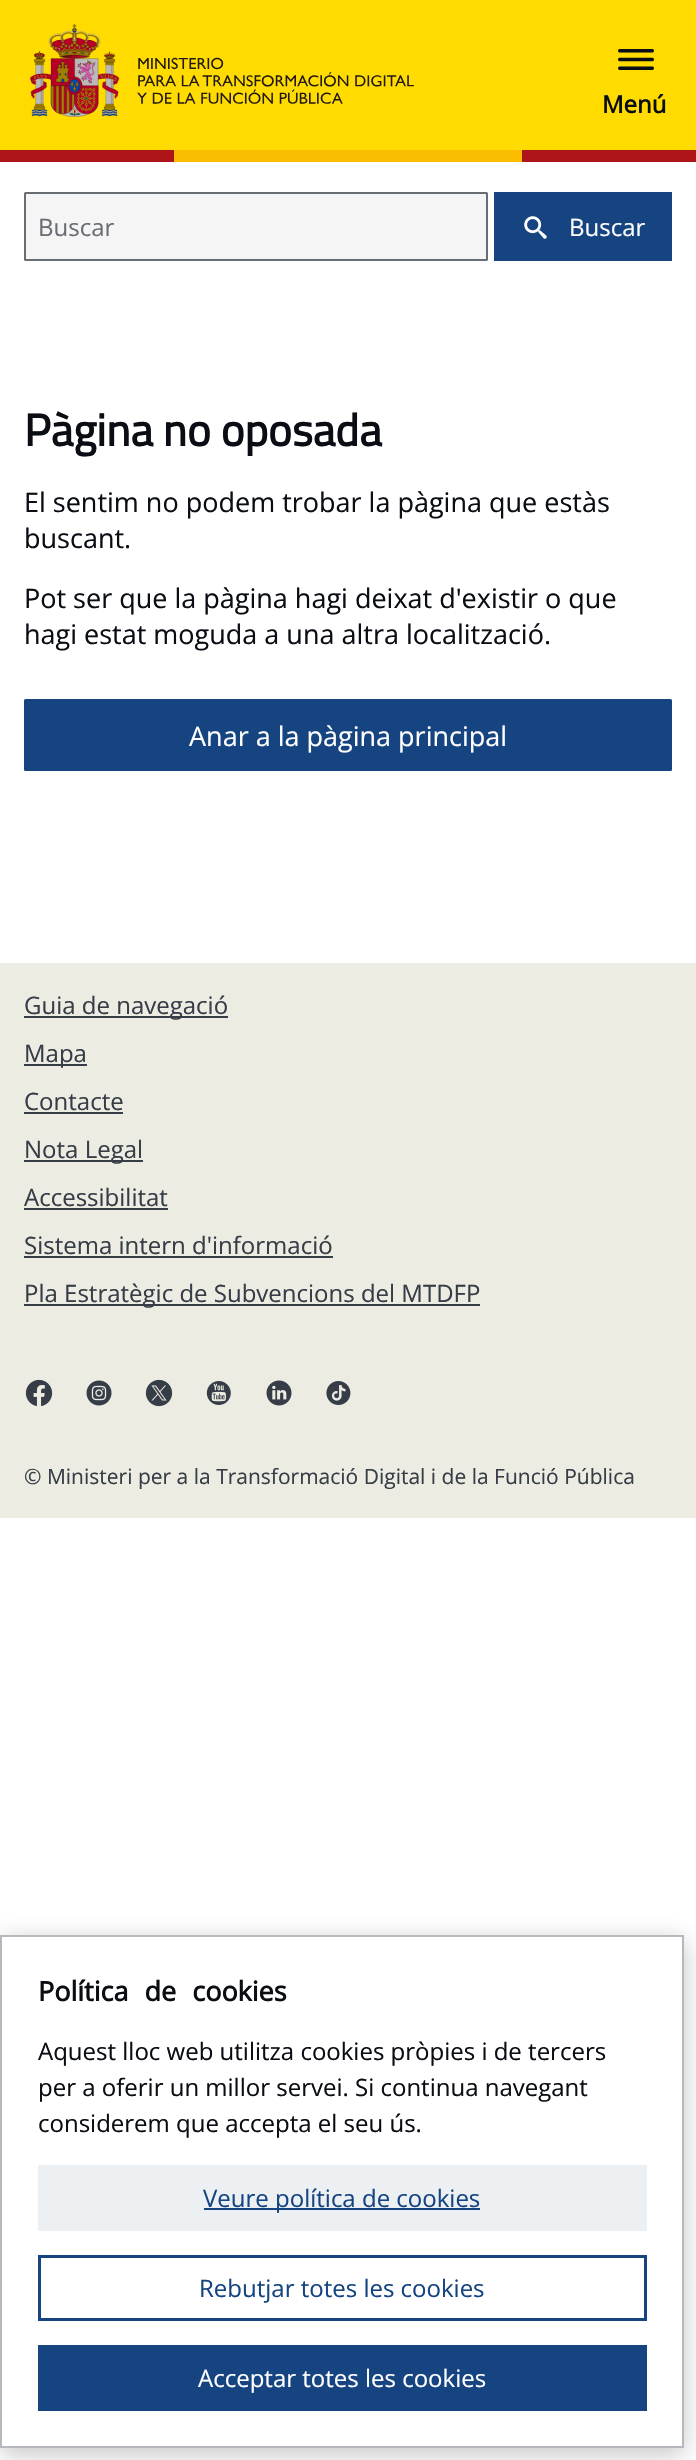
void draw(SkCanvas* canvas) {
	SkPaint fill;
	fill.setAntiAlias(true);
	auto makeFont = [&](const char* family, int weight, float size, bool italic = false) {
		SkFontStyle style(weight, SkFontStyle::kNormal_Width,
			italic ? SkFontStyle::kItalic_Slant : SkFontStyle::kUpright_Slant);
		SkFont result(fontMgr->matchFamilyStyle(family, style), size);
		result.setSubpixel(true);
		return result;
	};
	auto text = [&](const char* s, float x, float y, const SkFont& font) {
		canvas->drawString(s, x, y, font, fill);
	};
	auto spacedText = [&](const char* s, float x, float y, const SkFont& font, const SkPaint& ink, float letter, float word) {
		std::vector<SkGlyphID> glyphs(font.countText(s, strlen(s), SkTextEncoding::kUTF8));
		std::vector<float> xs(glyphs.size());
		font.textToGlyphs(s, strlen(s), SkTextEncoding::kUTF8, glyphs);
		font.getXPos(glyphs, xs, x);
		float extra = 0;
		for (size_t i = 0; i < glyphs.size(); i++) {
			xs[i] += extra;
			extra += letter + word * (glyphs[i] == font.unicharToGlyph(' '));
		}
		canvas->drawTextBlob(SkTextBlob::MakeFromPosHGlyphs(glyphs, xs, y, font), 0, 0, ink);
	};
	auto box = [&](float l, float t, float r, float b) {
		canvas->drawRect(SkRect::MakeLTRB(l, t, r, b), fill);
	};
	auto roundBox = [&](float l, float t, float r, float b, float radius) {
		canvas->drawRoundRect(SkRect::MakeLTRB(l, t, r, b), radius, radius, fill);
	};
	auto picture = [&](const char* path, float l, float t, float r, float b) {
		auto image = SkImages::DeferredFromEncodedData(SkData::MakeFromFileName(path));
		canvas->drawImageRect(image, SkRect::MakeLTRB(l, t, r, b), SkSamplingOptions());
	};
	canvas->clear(0xFFFFFFFF);
	fill.setColor(0xFFFFDB00);
	box(0, 0, 696, 150);
	picture("image0.png", 30, 24, 414, 117);
	picture("image1.png", 618, 49, 654, 70);
	fill.setColor(0xFFAD1519);
	box(0, 150, 174, 162);
	fill.setColor(0xFFFABD00);
	box(174, 150, 522, 162);
	fill.setColor(0xFFAD1519);
	box(522, 150, 696, 162);
	fill.setColor(0xFFF5F5F5);
	canvas->drawRoundRect(SkRect::MakeLTRB(25, 193, 487, 260), 0.5f, 0.5f, fill);
	fill.setStyle(SkPaint::kStroke_Style);
	fill.setStrokeWidth(2);
	fill.setColor(0xFF696E75);
	canvas->drawRoundRect(SkRect::MakeLTRB(25, 193, 487, 260), 0.5f, 0.5f, fill);
	fill.setStyle(SkPaint::kFill_Style);
	fill.setColor(0xFF154481);
	canvas->drawRect(SkRect::MakeLTRB(495.5f, 193.5f, 670.5f, 259.5f), fill);
	fill.setStyle(SkPaint::kStroke_Style);
	fill.setStrokeWidth(3);
	canvas->drawRect(SkRect::MakeLTRB(495.5f, 193.5f, 670.5f, 259.5f), fill);
	picture("image2.png", 524, 216, 547, 239);
	fill.setStyle(SkPaint::kFill_Style);
	roundBox(24, 699, 672, 771, 1.5f);
	fill.setColor(0xFFECECE2);
	box(0, 963, 696, 1518);
	fill.setColor(0xFF363D47);
	box(24, 1016, 228, 1018);
	box(24, 1064, 87, 1066);
	box(24, 1112, 123, 1114);
	box(24, 1160, 143, 1162);
	box(24, 1208, 168, 1210);
	box(24, 1256, 333, 1258);
	box(24, 1304, 480, 1306);
	picture("image3.png", 25, 1379, 53, 1407);
	picture("image4.png", 86, 1380, 112, 1406);
	picture("image5.png", 145, 1379, 173, 1407);
	picture("image6.png", 206, 1381, 231, 1405);
	picture("image7.png", 266, 1380, 292, 1406);
	picture("image8.png", 326, 1381, 351, 1405);
	canvas->save();
	canvas->clipPath(SkPathBuilder(SkPathFillType::kEvenOdd).moveTo(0, 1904).lineTo(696, 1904).lineTo(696, 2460).lineTo(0, 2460).close().moveTo(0, 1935).lineTo(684, 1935).lineTo(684, 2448).lineTo(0, 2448).close().detach(), true);
	fill.setColor(0x400A0E14);
	fill.setMaskFilter(SkMaskFilter::MakeBlur(kNormal_SkBlurStyle, 12));
	canvas->drawRect(SkRect::MakeLTRB(0, 1941, 684, 2454), fill);
	fill.setMaskFilter(nullptr);
	canvas->restore();
	fill.setStyle(SkPaint::kStroke_Style);
	fill.setStrokeWidth(2);
	fill.setColor(0xFFB5B8BE);
	canvas->drawRect(SkRect::MakeLTRB(1, 1936, 683, 2447), fill);
	fill.setStyle(SkPaint::kFill_Style);
	fill.setColor(0xFFEDF0F3);
	canvas->drawRect(SkRect::MakeLTRB(39.5f, 2166.5f, 645.5f, 2229.5f), fill);
	fill.setStyle(SkPaint::kStroke_Style);
	fill.setStrokeWidth(3);
	canvas->drawRect(SkRect::MakeLTRB(39.5f, 2166.5f, 645.5f, 2229.5f), fill);
	fill.setStyle(SkPaint::kFill_Style);
	fill.setColor(0xFF154481);
	box(204, 2208, 480, 2210);
	fill.setStyle(SkPaint::kStroke_Style);
	canvas->drawRect(SkRect::MakeLTRB(39.5f, 2256.5f, 645.5f, 2319.5f), fill);
	fill.setStyle(SkPaint::kFill_Style);
	canvas->drawRect(SkRect::MakeLTRB(39.5f, 2346.5f, 645.5f, 2409.5f), fill);
	fill.setStyle(SkPaint::kStroke_Style);
	canvas->drawRect(SkRect::MakeLTRB(39.5f, 2346.5f, 645.5f, 2409.5f), fill);
	auto font1 = makeFont("Open Sans", 700, 24);
	fill.setStyle(SkPaint::kFill_Style);
	fill.setColor(0xFF0A0E14);
	text("Menú", 602, 113, font1);
	auto font2 = makeFont("Open Sans", 400, 24);
	fill.setColor(0xFF696E75);
	text("Buscar", 38, 236, font2);
	fill.setColor(0xFFFFFFFF);
	text("Buscar", 569, 236, font2);
	auto font3 = makeFont("Titillium Web", 700, 45);
	fill.setColor(0xFF0A0E14);
	text("Pàgina no oposada", 24, 446, font3);
	auto font4 = makeFont("Open Sans", 400, 27);
	text("El sentim no podem trobar la pàgina que estàs", 24, 512, font4);
	text("buscant.", 24, 548, font4);
	text("Pot ser que la pàgina hagi deixat d'existir o que", 24, 608, font4);
	text("hagi estat moguda a una altra localització.", 24, 644, font4);
	fill.setColor(0xFFFFFFFF);
	text("Anar a la pàgina principal", 189, 746, font4);
	fill.setColor(0xFF363D47);
	text("Guia de navegació", 24, 1014, font2);
	text("Mapa", 24, 1062, font2);
	text("Contacte", 24, 1110, font2);
	text("Nota Legal", 24, 1158, font2);
	text("Accessibilitat", 24, 1206, font2);
	text("Sistema intern d'informació", 24, 1254, font2);
	text("Pla Estratègic de Subvencions del MTDFP", 24, 1302, font2);
	auto font5 = makeFont("Open Sans", 400, 21);
	text("© Ministeri per a la Transformació Digital i de la Funció Pública", 24, 1484, font5);
	auto font6 = makeFont("Open Sans", 700, 27);
	fill.setColor(0xFF0A0E14);
	spacedText("Política de cookies", 38, 2001, font6, fill, 0, 9);
	text("Aquest lloc web utilitza cookies pròpies i de tercers", 38, 2060, font2);
	text("per a oferir un millor servei. Si continua navegant", 38, 2096, font2);
	text("considerem que accepta el seu ús.", 38, 2132, font2);
	fill.setColor(0xFF154481);
	text("Veure política de cookies", 203, 2207, font2);
	text("Rebutjar totes les cookies", 199, 2297, font2);
	fill.setColor(0xFFFFFFFF);
	text("Acceptar totes les cookies", 198, 2387, font2);
}
